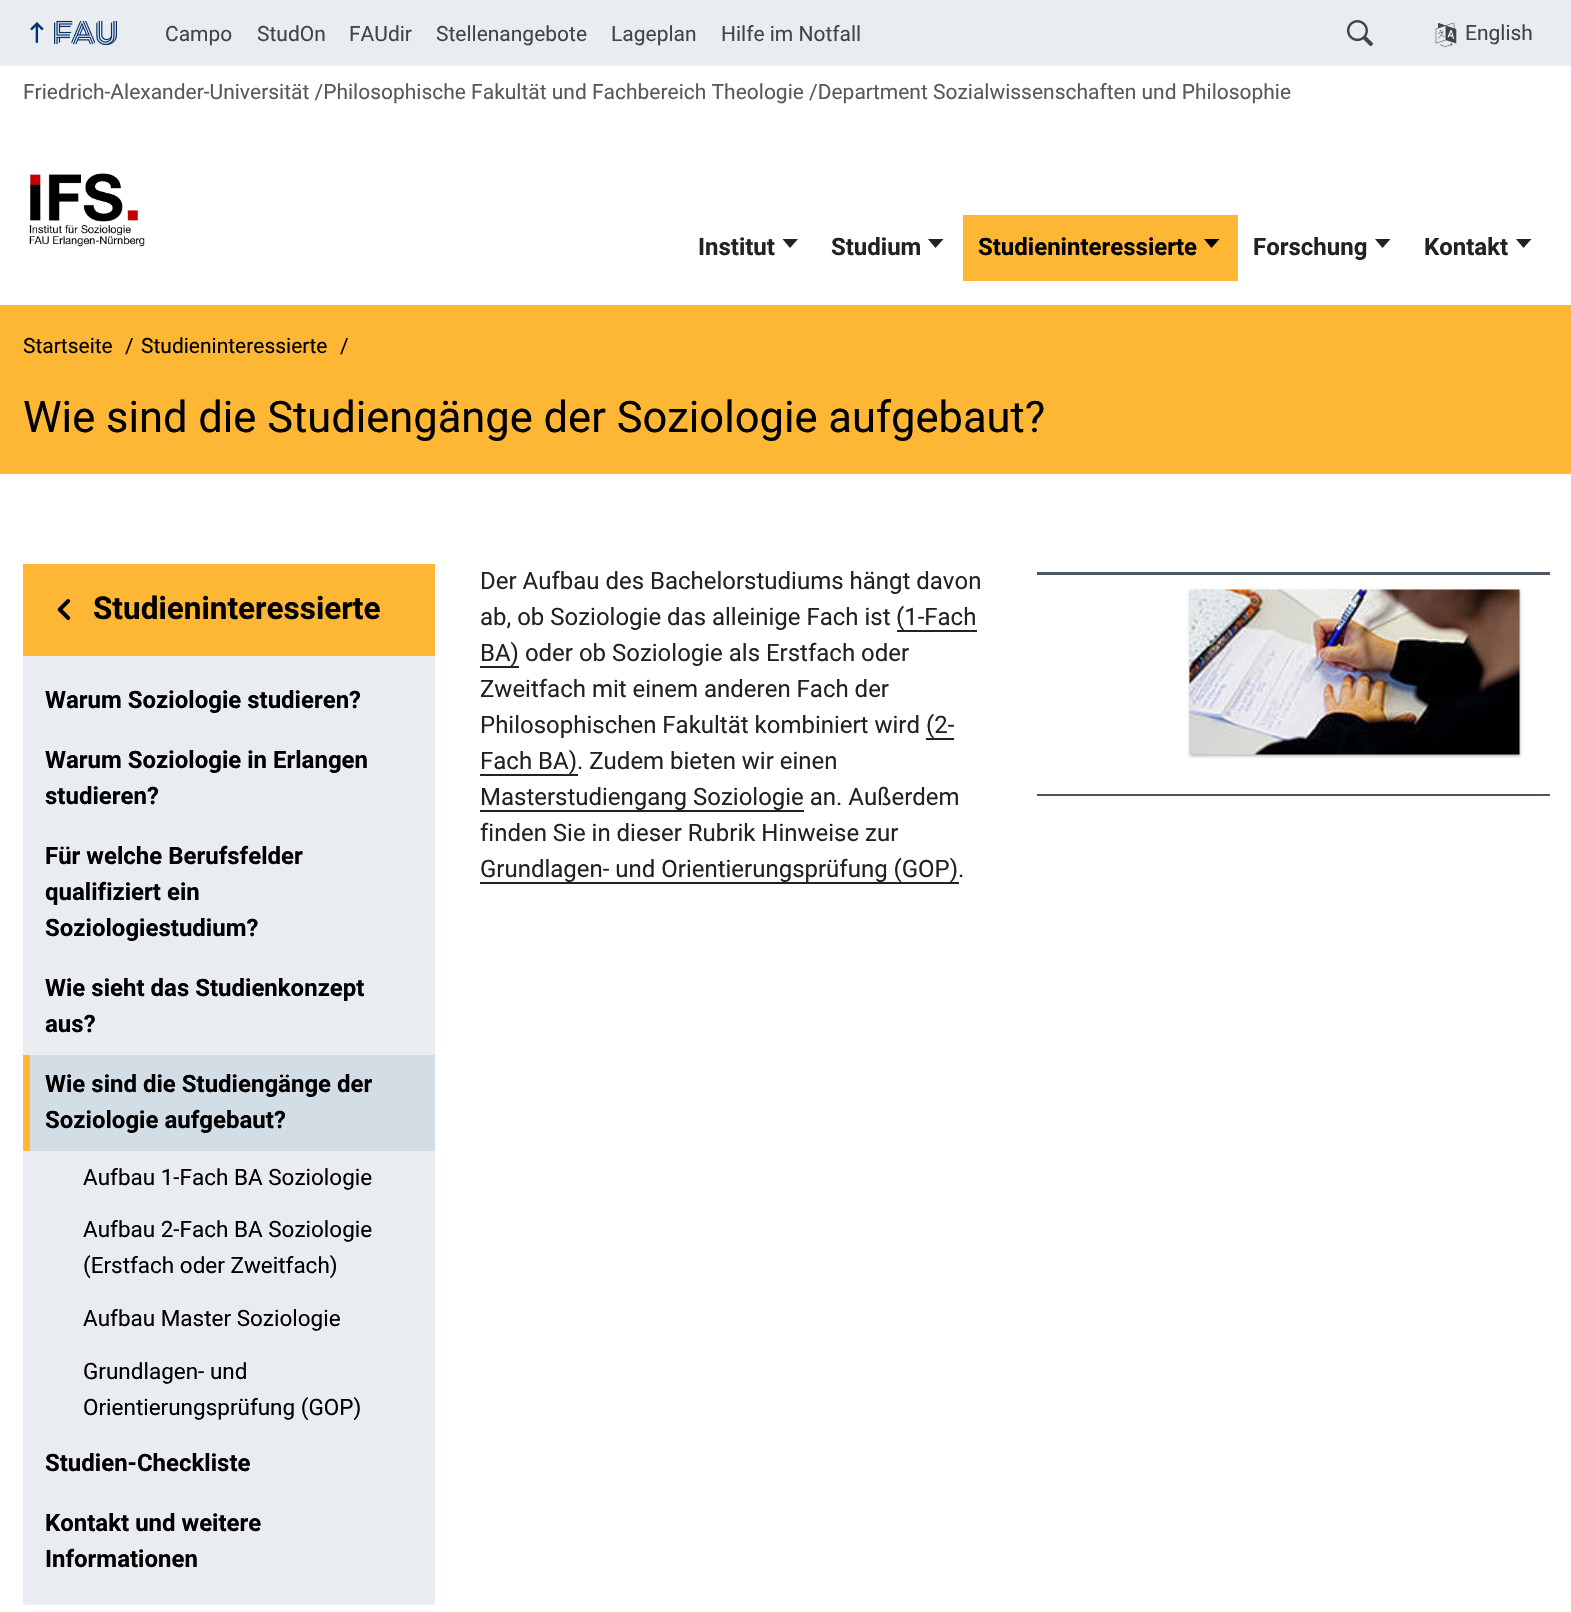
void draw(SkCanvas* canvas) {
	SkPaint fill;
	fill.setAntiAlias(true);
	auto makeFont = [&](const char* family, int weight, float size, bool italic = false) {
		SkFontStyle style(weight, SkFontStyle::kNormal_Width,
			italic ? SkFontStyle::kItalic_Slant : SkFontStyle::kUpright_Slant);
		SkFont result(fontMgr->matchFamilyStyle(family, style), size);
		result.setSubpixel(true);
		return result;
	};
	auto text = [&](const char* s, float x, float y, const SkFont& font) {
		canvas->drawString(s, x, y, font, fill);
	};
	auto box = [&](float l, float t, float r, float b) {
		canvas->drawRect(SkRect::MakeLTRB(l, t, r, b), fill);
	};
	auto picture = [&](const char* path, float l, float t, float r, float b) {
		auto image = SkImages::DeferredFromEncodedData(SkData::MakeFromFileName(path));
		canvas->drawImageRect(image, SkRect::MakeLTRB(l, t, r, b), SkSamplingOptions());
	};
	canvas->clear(0xFFFFFFFF);
	fill.setColor(0xFFE9EDF2);
	box(0, 0, 1571, 66);
	picture("image0.png", 30, 22, 44, 43);
	picture("image1.png", 54, 20, 117, 46);
	picture("image2.png", 1346, 20, 1373, 46);
	picture("image3.png", 1435, 23, 1457, 47);
	picture("image4.png", 29, 173, 145, 247);
	fill.setColor(0xFF222222);
	canvas->drawPath(SkPathBuilder().moveTo(782.5f, 239).lineTo(790, 248).lineTo(798, 239).close().detach(), fill);
	canvas->drawPath(SkPathBuilder().moveTo(928, 239).lineTo(935.5f, 248).lineTo(943.5f, 239).close().detach(), fill);
	fill.setColor(0xFFFDB735);
	box(963, 215, 1238, 281);
	fill.setColor(0xFF000000);
	canvas->drawPath(SkPathBuilder().moveTo(1204, 239).lineTo(1211.5f, 248).lineTo(1219.5f, 239).close().detach(), fill);
	fill.setColor(0xFF222222);
	canvas->drawPath(SkPathBuilder().moveTo(1375, 239).lineTo(1382.5f, 248).lineTo(1390.5f, 239).close().detach(), fill);
	canvas->drawPath(SkPathBuilder().moveTo(1516, 239).lineTo(1523.5f, 248).lineTo(1531.5f, 239).close().detach(), fill);
	fill.setColor(0xFFFDB735);
	box(0, 305, 1571, 474);
	box(23, 564, 435, 656);
	picture("image5.png", 57, 599, 71, 620);
	fill.setColor(0xFFE9EDF2);
	box(23, 656, 435, 1605);
	fill.setColor(0xFFD3DDE6);
	box(30, 1055, 435, 1151);
	fill.setColor(0xFFFDB735);
	box(23, 1055, 30, 1151);
	fill.setColor(0xFF222222);
	box(897, 630, 977, 632);
	box(480, 666, 519, 668);
	box(926, 738, 954, 740);
	box(480, 774, 578, 776);
	box(480, 810, 804, 812);
	box(480, 882, 959, 884);
	fill.setColor(0xFF4E5862);
	box(1037, 572, 1550, 575);
	box(1037, 794, 1550, 796);
	fill.setColor(0x4D000000);
	fill.setMaskFilter(SkMaskFilter::MakeBlur(kNormal_SkBlurStyle, 1.5f));
	canvas->drawRect(SkRect::MakeLTRB(1190, 591, 1520, 756), fill);
	fill.setMaskFilter(nullptr);
	picture("image6.png", 1189, 589, 1520, 755);
	auto font1 = makeFont("Roboto", 400, 21);
	fill.setColor(0xFF444444);
	text("Campo", 165, 41, font1);
	text("StudOn", 257, 41, font1);
	text("FAUdir", 349, 41, font1);
	text("Stellenangebote", 436, 41, font1);
	text("Lageplan", 611, 41, font1);
	text("Hilfe im Notfall", 721, 41, font1);
	text("English", 1465, 40, font1);
	fill.setColor(0xFF5B5858);
	text("Friedrich-Alexander-Universität /Philosophische Fakultät und Fachbereich Theologie /Department Sozialwissenschaften und Philosophie", 23, 99, font1);
	auto font2 = makeFont("Roboto", 700, 24);
	fill.setColor(0xFF222222);
	text("Institut", 698, 255, font2);
	text("Studium", 831, 255, font2);
	fill.setColor(0xFF000000);
	text("Studieninteressierte", 978, 255, font2);
	fill.setColor(0xFF222222);
	text("Forschung", 1253, 255, font2);
	text("Kontakt", 1424, 255, font2);
	fill.setColor(0xFF000000);
	text("Startseite", 23, 353, font1);
	text("/", 125, 353, font1);
	text("Studieninteressierte", 141, 353, font1);
	text("/", 340, 353, font1);
	auto font3 = makeFont("Roboto", 400, 43.5f);
	text("Wie sind die Studiengänge der Soziologie aufgebaut?", 23, 432, font3);
	auto font4 = makeFont("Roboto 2", 700, 31.5f);
	text("Studieninteressierte", 93, 619, font4);
	auto font5 = makeFont("Roboto 2", 700, 24);
	text("Warum Soziologie studieren?", 45, 708, font5);
	text("Warum Soziologie in Erlangen", 45, 768, font5);
	text("studieren?", 45, 804, font5);
	text("Für welche Berufsfelder", 45, 864, font5);
	text("qualifiziert ein", 45, 900, font5);
	text("Soziologiestudium?", 45, 936, font5);
	text("Wie sieht das Studienkonzept", 45, 996, font5);
	text("aus?", 45, 1032, font5);
	text("Wie sind die Studiengänge der", 45, 1092, font2);
	text("Soziologie aufgebaut?", 45, 1128, font2);
	auto font6 = makeFont("Roboto", 400, 22.5f);
	text("Aufbau 1-Fach BA Soziologie", 83, 1185, font6);
	text("Aufbau 2-Fach BA Soziologie", 83, 1237, font6);
	text("(Erstfach oder Zweitfach)", 83, 1273, font6);
	text("Aufbau Master Soziologie", 83, 1326, font6);
	text("Grundlagen- und", 83, 1379, font6);
	text("Orientierungsprüfung (GOP)", 83, 1415, font6);
	text("Studien-Checkliste", 45, 1471, font5);
	text("Kontakt und weitere", 45, 1531, font5);
	text("Informationen", 45, 1567, font5);
	auto font7 = makeFont("Roboto", 400, 24);
	fill.setColor(0xFF222222);
	text("Der Aufbau des Bachelorstudiums hängt davon", 480, 589, font7);
	text("ab, ob Soziologie das alleinige Fach ist", 480, 625, font7);
	text("(1-Fach", 896, 625, font7);
	text("BA) oder ob Soziologie als Erstfach oder", 480, 661, font7);
	text("Zweitfach mit einem anderen Fach der", 480, 697, font7);
	text("Philosophischen Fakultät kombiniert wird", 480, 733, font7);
	text("(2-", 926, 733, font7);
	text("Fach BA). Zudem bieten wir einen", 480, 769, font7);
	text("Masterstudiengang Soziologie an. Außerdem", 480, 805, font7);
	text("finden Sie in dieser Rubrik Hinweise zur", 480, 841, font7);
	text("Grundlagen- und Orientierungsprüfung (GOP).", 480, 877, font7);
}
